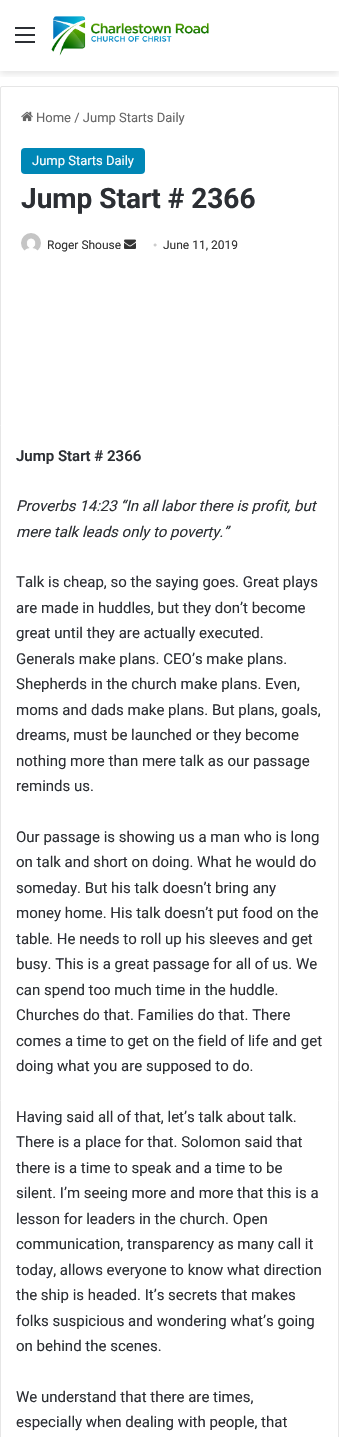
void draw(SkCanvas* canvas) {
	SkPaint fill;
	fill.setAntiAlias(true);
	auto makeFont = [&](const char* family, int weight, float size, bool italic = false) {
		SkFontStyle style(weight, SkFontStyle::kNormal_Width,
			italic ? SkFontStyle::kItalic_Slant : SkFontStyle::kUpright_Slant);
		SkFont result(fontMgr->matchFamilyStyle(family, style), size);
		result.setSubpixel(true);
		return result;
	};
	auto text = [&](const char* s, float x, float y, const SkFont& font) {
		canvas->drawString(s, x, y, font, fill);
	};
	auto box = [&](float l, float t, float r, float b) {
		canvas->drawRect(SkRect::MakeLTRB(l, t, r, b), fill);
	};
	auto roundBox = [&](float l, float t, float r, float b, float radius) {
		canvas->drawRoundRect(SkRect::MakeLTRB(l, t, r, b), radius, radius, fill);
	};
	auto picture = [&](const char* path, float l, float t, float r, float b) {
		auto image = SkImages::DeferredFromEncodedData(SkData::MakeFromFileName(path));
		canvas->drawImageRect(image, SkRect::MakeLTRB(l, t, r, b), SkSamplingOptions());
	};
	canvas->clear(0xFFFFFFFF);
	canvas->save();
	canvas->clipRect(SkRect::MakeLTRB(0, 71, 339, 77));
	fill.setColor(0x1A000000);
	fill.setMaskFilter(SkMaskFilter::MakeBlur(kNormal_SkBlurStyle, 3.5f));
	canvas->drawRect(SkRect::MakeLTRB(0, 3, 339, 74), fill);
	fill.setMaskFilter(nullptr);
	canvas->restore();
	fill.setColor(0xFF2C2F34);
	box(15, 34, 35, 36);
	box(15, 27, 35, 29);
	box(15, 41, 35, 43);
	picture("image0.png", 51, 16, 209, 56);
	fill.setStyle(SkPaint::kStroke_Style);
	fill.setStrokeWidth(1);
	fill.setColor(0xFFE6E6E6);
	canvas->drawRoundRect(SkRect::MakeLTRB(0.5f, 86.5f, 338.5f, 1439.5f), 1.5f, 1.5f, fill);
	picture("image1.png", 21, 111, 33, 122);
	fill.setStyle(SkPaint::kFill_Style);
	fill.setColor(0xFF0087B6);
	roundBox(21, 148, 145, 174, 4);
	picture("image2.png", 21, 233, 41, 251);
	picture("image3.png", 124, 239, 136, 249);
	auto font1 = makeFont("Roboto", 400, 13);
	fill.setColor(0xFF666666);
	text("Home / Jump Starts Daily", 36, 122, font1);
	fill.setColor(0xFFFFFFFF);
	text("Jump Starts Daily", 32, 165, font1);
	auto font2 = makeFont("Roboto", 700, 28);
	fill.setColor(0xFF2C2F34);
	text("Jump Start # 2366", 21, 208, font2);
	auto font3 = makeFont("Roboto", 400, 12);
	fill.setColor(0xFF333333);
	text("Roger Shouse", 47, 249, font3);
	auto font4 = makeFont("Liberation Serif", 400, 12);
	fill.setColor(0xFFCCCCCC);
	text("•", 153, 249, font4);
	fill.setColor(0xFF333333);
	text("June 11, 2019", 163, 249, font3);
	auto font5 = makeFont("Roboto", 600, 15);
	fill.setColor(0xFF2C2F34);
	text("Jump Start # 2366", 16, 461, font5);
	auto font6 = makeFont("Roboto", 400, 15, true);
	text("Proverbs 14:23 “In all labor there is profit, but", 16, 511, font6);
	text("mere talk leads only to poverty.”", 16, 537, font6);
	auto font7 = makeFont("Roboto", 400, 15);
	text("Talk is cheap, so the saying goes. Great plays", 16, 587, font7);
	text("are made in huddles, but they don’t become", 16, 613, font7);
	text("great until they are actually executed.", 16, 638, font7);
	text("Generals make plans. CEO’s make plans.", 16, 664, font7);
	text("Shepherds in the church make plans. Even,", 16, 689, font7);
	text("moms and dads make plans. But plans, goals,", 16, 715, font7);
	text("dreams, must be launched or they become", 16, 740, font7);
	text("nothing more than mere talk as our passage", 16, 766, font7);
	text("reminds us.", 16, 791, font7);
	text("Our passage is showing us a man who is long", 16, 842, font7);
	text("on talk and short on doing. What he would do", 16, 867, font7);
	text("someday. But his talk doesn’t bring any", 16, 893, font7);
	text("money home. His talk doesn’t put food on the", 16, 918, font7);
	text("table. He needs to roll up his sleeves and get", 16, 944, font7);
	text("busy. This is a great passage for all of us. We", 16, 969, font7);
	text("can spend too much time in the huddle.", 16, 995, font7);
	text("Churches do that. Families do that. There", 16, 1020, font7);
	text("comes a time to get on the field of life and get", 16, 1046, font7);
	text("doing what you are supposed to do.", 16, 1071, font7);
	text("Having said all of that, let’s talk about talk.", 16, 1122, font7);
	text("There is a place for that. Solomon said that", 16, 1147, font7);
	text("there is a time to speak and a time to be", 16, 1173, font7);
	text("silent. I’m seeing more and more that this is a", 16, 1198, font7);
	text("lesson for leaders in the church. Open", 16, 1224, font7);
	text("communication, transparency as many call it", 16, 1249, font7);
	text("today, allows everyone to know what direction", 16, 1275, font7);
	text("the ship is headed. It’s secrets that makes", 16, 1300, font7);
	text("folks suspicious and wondering what’s going", 16, 1326, font7);
	text("on behind the scenes.", 16, 1351, font7);
	text("We understand that there are times,", 16, 1402, font7);
	text("especially when dealing with people, that", 16, 1427, font7);
}
